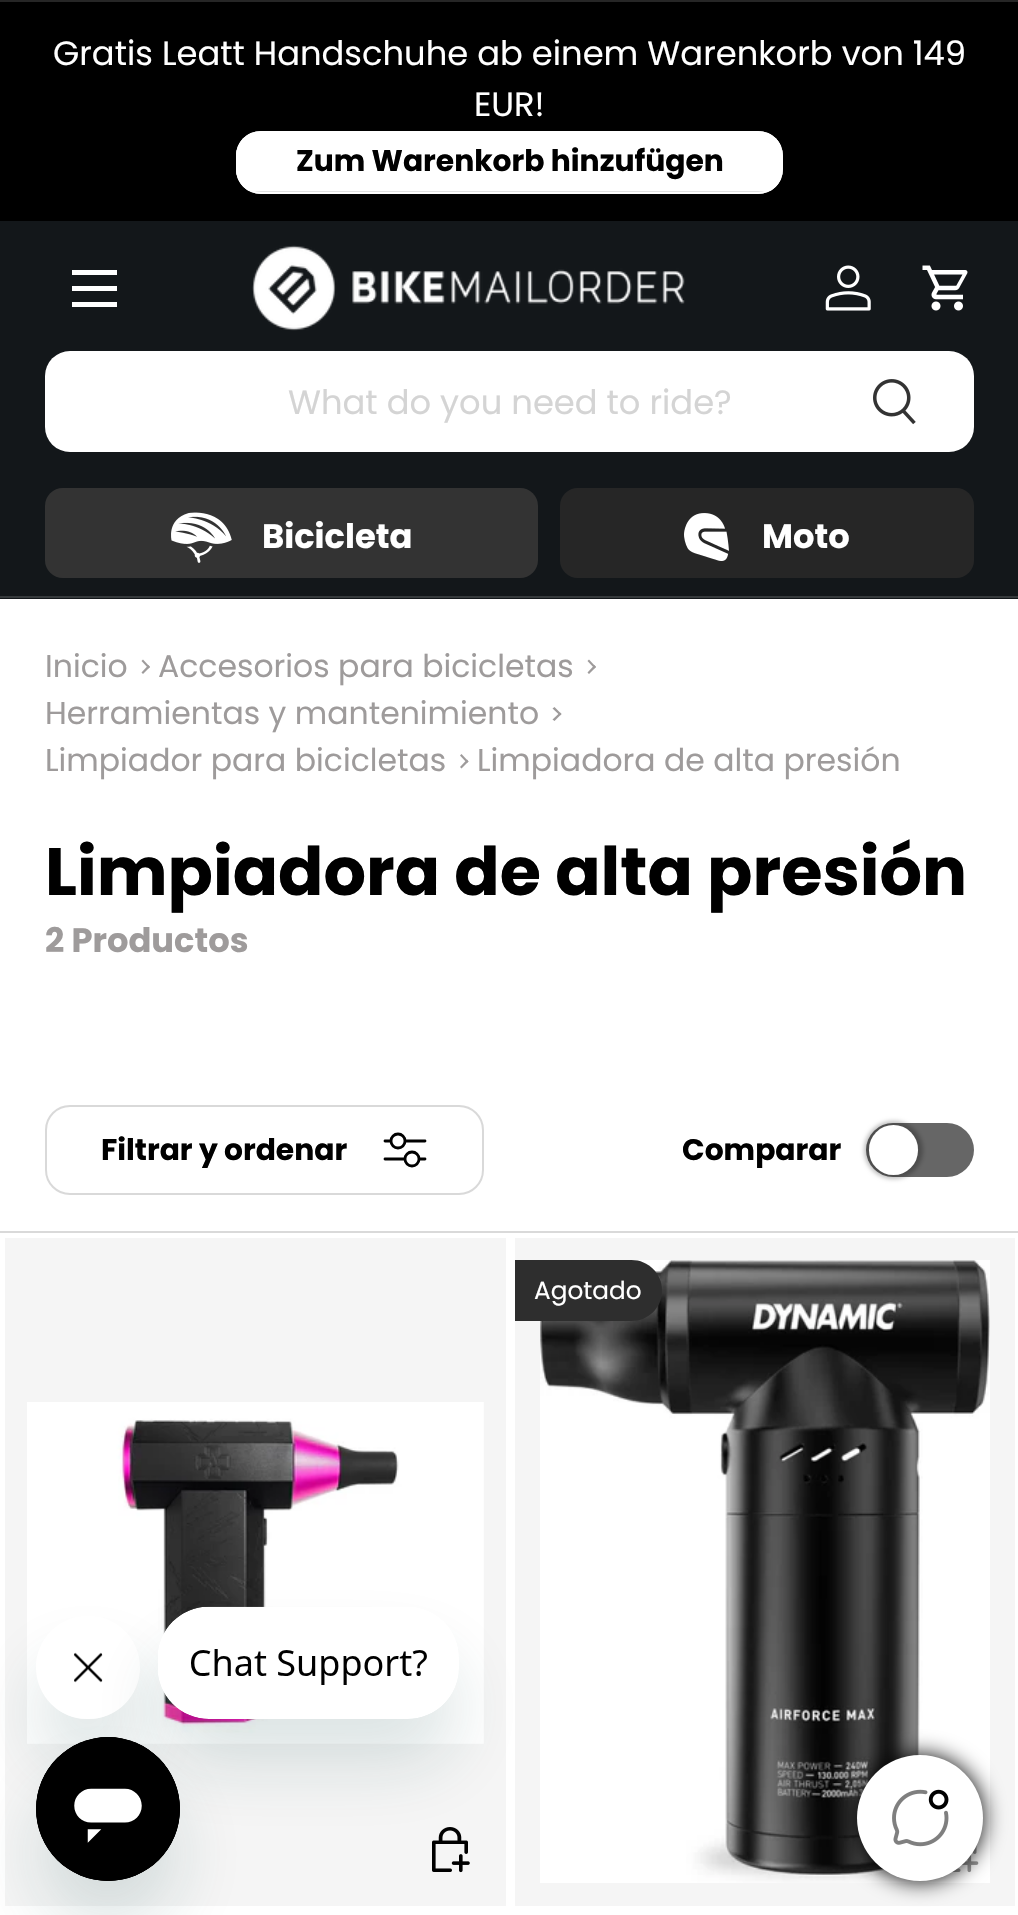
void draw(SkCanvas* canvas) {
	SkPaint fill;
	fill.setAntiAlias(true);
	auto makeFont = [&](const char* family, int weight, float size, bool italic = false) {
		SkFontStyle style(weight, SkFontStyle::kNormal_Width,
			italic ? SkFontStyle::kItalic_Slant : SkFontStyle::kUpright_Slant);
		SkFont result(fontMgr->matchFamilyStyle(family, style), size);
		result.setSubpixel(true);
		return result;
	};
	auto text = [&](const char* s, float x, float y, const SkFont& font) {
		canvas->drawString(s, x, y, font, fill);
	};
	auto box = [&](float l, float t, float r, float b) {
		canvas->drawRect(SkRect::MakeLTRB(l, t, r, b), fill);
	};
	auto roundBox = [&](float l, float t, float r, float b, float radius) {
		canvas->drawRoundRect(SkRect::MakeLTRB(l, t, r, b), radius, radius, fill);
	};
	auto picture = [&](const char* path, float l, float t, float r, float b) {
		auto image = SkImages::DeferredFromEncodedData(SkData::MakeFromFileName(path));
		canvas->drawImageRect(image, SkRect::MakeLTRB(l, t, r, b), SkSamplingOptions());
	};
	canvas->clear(0xFFFFFFFF);
	fill.setColor(0xFF000000);
	box(0, 2, 1018, 221);
	fill.setColor(0xFF262626);
	box(0, 0, 1018, 2);
	fill.setColor(0xFFE1E1E1);
	roundBox(236, 131, 783, 194, 25);
	canvas->save();
	canvas->clipPath(SkPathBuilder().moveTo(261, 131).lineTo(758, 131).cubicTo(772, 131, 783, 142, 783, 156).lineTo(783, 169).cubicTo(783, 183, 772, 194, 758, 194).lineTo(261, 194).cubicTo(247, 194, 236, 183, 236, 169).lineTo(236, 156).cubicTo(236, 142, 247, 131, 261, 131).close().detach(), true);
	{
		const SkColor colors[] = {0xFFE1E1E1, 0xFFFFFFFF, 0xFFFFFFFF};
		const float stops[] = {0.6f, 0.6f, 1};
		const SkPoint ends[] = {{-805, -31}, {740, 355}};
		fill.setShader(SkGradientShader::MakeLinear(ends, colors, stops, 3, SkTileMode::kClamp));
		fill.setAlpha(255);
	}
	box(236, 133, 781, 191);
	canvas->restore();
	fill.setStyle(SkPaint::kStroke_Style);
	fill.setStrokeWidth(2);
	fill.setShader(nullptr);
	fill.setColor(0xFFFFFFFF);
	canvas->drawRoundRect(SkRect::MakeLTRB(237, 132, 782, 193), 24, 24, fill);
	fill.setStyle(SkPaint::kFill_Style);
	fill.setColor(0xFF13171A);
	box(0, 221, 1018, 599);
	fill.setColor(0xFF363A3C);
	box(0, 596, 1018, 598);
	fill.setColor(0xFFFFFFFF);
	box(72, 270, 117, 275);
	box(72, 302, 117, 307);
	box(72, 286, 117, 291);
	picture("image0.png", 252, 245, 685, 331);
	picture("image1.png", 825, 265, 871, 311);
	picture("image2.png", 922, 265, 968, 311);
	roundBox(45, 351, 974, 452, 25);
	picture("image3.png", 873, 379, 916, 425);
	fill.setColor(0xFF333333);
	roundBox(45, 488, 538, 578, 18);
	picture("image4.png", 171, 512, 232, 563);
	fill.setColor(0xFF262626);
	roundBox(560, 488, 974, 578, 18);
	picture("image5.png", 684, 513, 729, 561);
	fill.setColor(0xFF9E9B9B);
	canvas->drawPath(SkPathBuilder().moveTo(143, 659.5f).lineTo(150, 667).lineTo(148.5f, 668.5f).lineTo(141.5f, 661).close().detach(), fill);
	canvas->drawPath(SkPathBuilder().moveTo(148.5f, 665).lineTo(150, 667).lineTo(143, 674).lineTo(141.5f, 672.5f).close().detach(), fill);
	canvas->drawPath(SkPathBuilder().moveTo(589, 659.5f).lineTo(596, 667).lineTo(594.5f, 668.5f).lineTo(587.5f, 661).close().detach(), fill);
	canvas->drawPath(SkPathBuilder().moveTo(594.5f, 665).lineTo(596, 667).lineTo(589, 674).lineTo(587.5f, 672.5f).close().moveTo(554.5f, 707).lineTo(561.5f, 714).lineTo(560, 715.5f).lineTo(552.5f, 708.5f).close().detach(), fill);
	canvas->drawPath(SkPathBuilder().moveTo(560, 712.5f).lineTo(561.5f, 714).lineTo(554.5f, 721).lineTo(552.5f, 719.5f).close().detach(), fill);
	canvas->drawPath(SkPathBuilder().moveTo(461.5f, 754).lineTo(468.5f, 761.5f).lineTo(467, 763).lineTo(460, 755.5f).close().detach(), fill);
	canvas->drawPath(SkPathBuilder().moveTo(467, 759.5f).lineTo(468.5f, 761.5f).lineTo(461.5f, 768.5f).lineTo(460, 767).close().detach(), fill);
	fill.setStyle(SkPaint::kStroke_Style);
	fill.setColor(0xFFD9D9D9);
	canvas->drawRoundRect(SkRect::MakeLTRB(46, 1106, 483, 1194), 24, 24, fill);
	fill.setStrokeWidth(2.8f);
	fill.setStrokeCap(SkPaint::kRound_Cap);
	fill.setStrokeJoin(SkPaint::kRound_Join);
	fill.setColor(0xFF000000);
	canvas->drawPath(SkPathBuilder().moveTo(385, 1141).lineTo(425, 1141).moveTo(385, 1159).lineTo(425, 1159).detach(), fill);
	fill.setStyle(SkPaint::kFill_Style);
	fill.setColor(0xFFFFFFFF);
	canvas->drawCircle(398, 1141, 7, fill);
	fill.setStyle(SkPaint::kStroke_Style);
	fill.setStrokeCap(SkPaint::kButt_Cap);
	fill.setStrokeJoin(SkPaint::kMiter_Join);
	fill.setColor(0xFF000000);
	canvas->drawCircle(398, 1141, 7, fill);
	fill.setStyle(SkPaint::kFill_Style);
	fill.setColor(0xFFFFFFFF);
	canvas->drawCircle(412, 1159, 7, fill);
	fill.setStyle(SkPaint::kStroke_Style);
	fill.setColor(0xFF000000);
	canvas->drawCircle(412, 1159, 7, fill);
	fill.setStyle(SkPaint::kFill_Style);
	fill.setColor(0xFF666666);
	roundBox(866, 1123, 974, 1177, 27);
	fill.setColor(0x40000000);
	fill.setMaskFilter(SkMaskFilter::MakeBlur(kNormal_SkBlurStyle, 2));
	canvas->drawRoundRect(SkRect::MakeLTRB(864, 1121, 923, 1179), 29, 29, fill);
	fill.setMaskFilter(nullptr);
	fill.setColor(0xFFFFFFFF);
	roundBox(869, 1125, 918, 1175, 24.5f);
	fill.setColor(0xFFD9D9D9);
	box(0, 1231, 1018, 1233);
	fill.setColor(0xFFF5F5F5);
	box(5, 1238, 506, 1906);
	picture("image6.png", 27, 1402, 484, 1744);
	picture("image7.png", 432, 1827, 470, 1873);
	box(515, 1238, 1015, 1906);
	picture("image8.png", 540, 1260, 990, 1883);
	fill.setColor(0xFF2E2E2E);
	canvas->drawPath(SkPathBuilder().moveTo(515, 1260).lineTo(631.5f, 1260).cubicTo(648.5f, 1260, 662, 1273.5f, 662, 1290.5f).cubicTo(662, 1307.5f, 648.5f, 1321, 631.5f, 1321).lineTo(515, 1321).close().detach(), fill);
	picture("image9.png", 952, 1844, 979, 1873);
	canvas->save();
	canvas->clipPath(SkPathBuilder(SkPathFillType::kEvenOdd).moveTo(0, 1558).lineTo(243, 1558).lineTo(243, 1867).lineTo(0, 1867).close().moveTo(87.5f, 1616).lineTo(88.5f, 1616).cubicTo(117, 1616, 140, 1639, 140, 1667.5f).cubicTo(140, 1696, 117, 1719, 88.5f, 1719).lineTo(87.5f, 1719).cubicTo(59, 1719, 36, 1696, 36, 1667.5f).cubicTo(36, 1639, 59, 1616, 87.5f, 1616).close().detach(), true);
	fill.setColor(0x2617494D);
	fill.setMaskFilter(SkMaskFilter::MakeBlur(kNormal_SkBlurStyle, 34));
	canvas->drawRoundRect(SkRect::MakeLTRB(36, 1661, 140, 1764), 51.5f, 51.5f, fill);
	fill.setMaskFilter(nullptr);
	canvas->restore();
	picture("image11.png", 56, 1652, 122, 1719);
	fill.setMaskFilter(SkMaskFilter::MakeBlur(kNormal_SkBlurStyle, 34));
	canvas->drawRoundRect(SkRect::MakeLTRB(158, 1652, 457, 1764), 52, 52, fill);
	fill.setMaskFilter(nullptr);
	picture("image10.png", 158, 1606, 459, 1719);
	fill.setMaskFilter(SkMaskFilter::MakeBlur(kNormal_SkBlurStyle, 34));
	canvas->drawRoundRect(SkRect::MakeLTRB(36, 1782, 180, 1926), 72, 72, fill);
	fill.setMaskFilter(nullptr);
	picture("image12.png", 36, 1737, 180, 1881);
	fill.setColor(0xFF000000);
	fill.setMaskFilter(SkMaskFilter::MakeBlur(kNormal_SkBlurStyle, 11));
	canvas->drawRoundRect(SkRect::MakeLTRB(857, 1755, 983, 1881), 63, 63, fill);
	fill.setMaskFilter(nullptr);
	fill.setColor(0xFFFFFFFF);
	canvas->drawCircle(920, 1818, 63, fill);
	picture("image13.png", 892, 1789, 949, 1847);
	auto font1 = makeFont("Poppins", 400, 33.75f);
	text("Gratis Leatt Handschuhe ab einem Warenkorb von 149", 53, 65, font1);
	text("EUR!", 474, 116, font1);
	auto font2 = makeFont("Poppins", 700, 29.75f);
	fill.setColor(0xFF000000);
	text("Zum Warenkorb hinzufügen", 296, 171, font2);
	fill.setColor(0xFFD4D4D4);
	text("What do you need to ride?", 288, 414, font1);
	auto font3 = makeFont("Poppins", 700, 33.75f);
	fill.setColor(0xFFFFFFFF);
	text("Bicicleta", 262, 548, font3);
	text("Moto", 762, 548, font3);
	auto font4 = makeFont("Poppins", 400, 31.5f);
	fill.setColor(0xFF9E9B9B);
	text("Inicio", 45, 677, font4);
	text("Accesorios para bicicletas", 158, 677, font4);
	text("Herramientas y mantenimiento", 45, 724, font4);
	text("Limpiador para bicicletas", 45, 771, font4);
	text("Limpiadora de alta presión", 477, 771, font4);
	auto font5 = makeFont("Poppins", 700, 66.9f);
	fill.setColor(0xFF000000);
	text("Limpiadora de alta presión", 45, 895, font5);
	fill.setColor(0xFF9E9B9B);
	text("2 Productos", 45, 952, font3);
	fill.setColor(0xFF000000);
	text("Filtrar y ordenar", 101, 1160, font2);
	text("Comparar", 682, 1160, font2);
	auto font6 = makeFont("Poppins", 400, 24.75f);
	fill.setColor(0xFFFFFFFF);
	text("Agotado", 534, 1299, font6);
}
